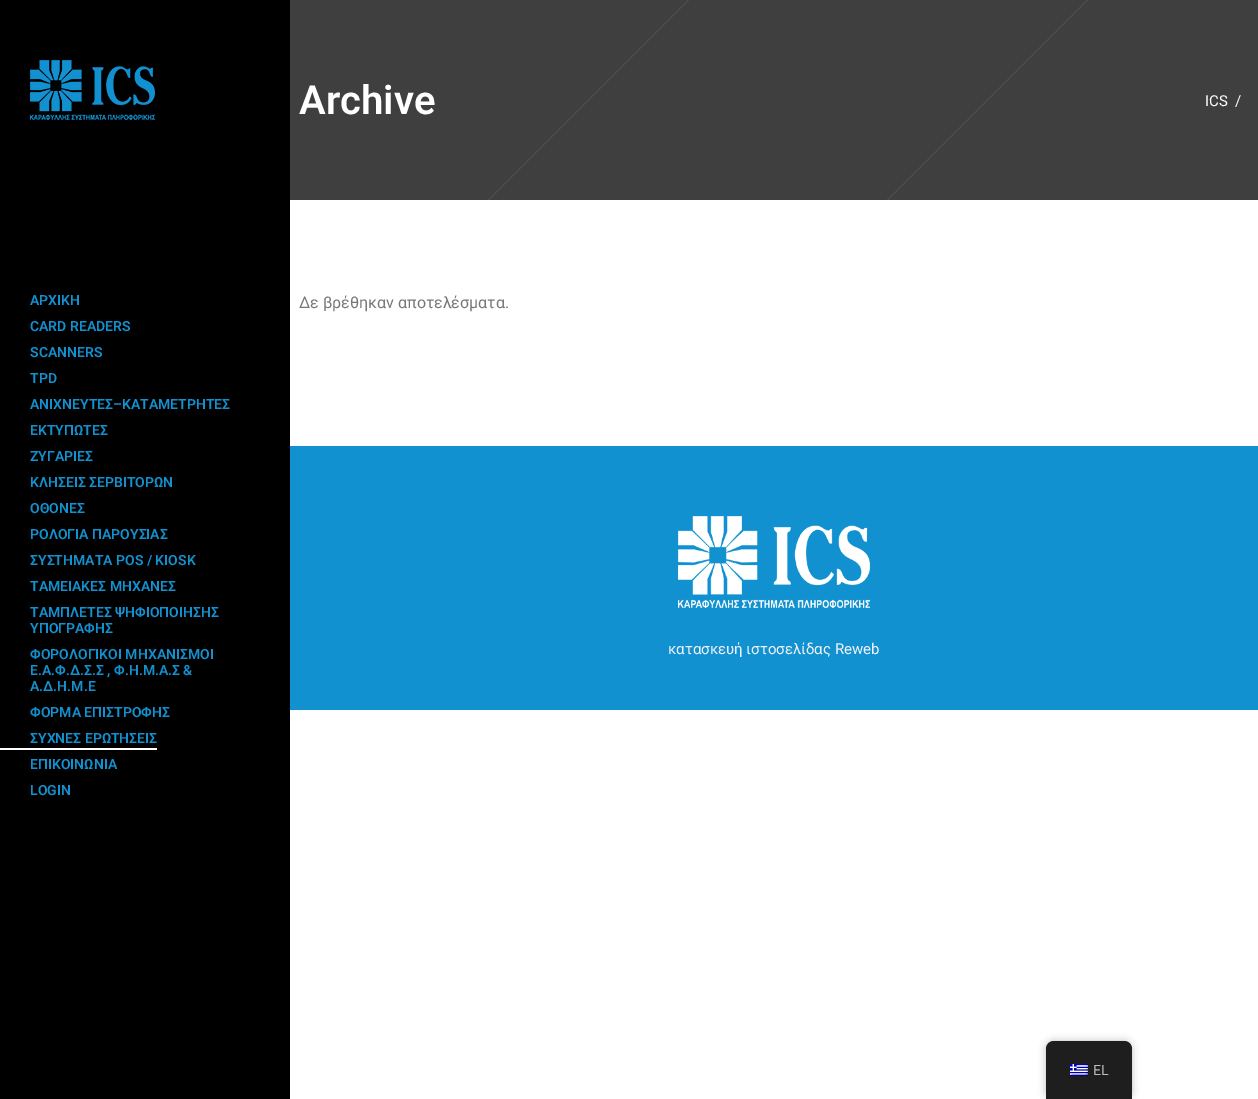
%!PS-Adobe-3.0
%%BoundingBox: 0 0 1258 1099
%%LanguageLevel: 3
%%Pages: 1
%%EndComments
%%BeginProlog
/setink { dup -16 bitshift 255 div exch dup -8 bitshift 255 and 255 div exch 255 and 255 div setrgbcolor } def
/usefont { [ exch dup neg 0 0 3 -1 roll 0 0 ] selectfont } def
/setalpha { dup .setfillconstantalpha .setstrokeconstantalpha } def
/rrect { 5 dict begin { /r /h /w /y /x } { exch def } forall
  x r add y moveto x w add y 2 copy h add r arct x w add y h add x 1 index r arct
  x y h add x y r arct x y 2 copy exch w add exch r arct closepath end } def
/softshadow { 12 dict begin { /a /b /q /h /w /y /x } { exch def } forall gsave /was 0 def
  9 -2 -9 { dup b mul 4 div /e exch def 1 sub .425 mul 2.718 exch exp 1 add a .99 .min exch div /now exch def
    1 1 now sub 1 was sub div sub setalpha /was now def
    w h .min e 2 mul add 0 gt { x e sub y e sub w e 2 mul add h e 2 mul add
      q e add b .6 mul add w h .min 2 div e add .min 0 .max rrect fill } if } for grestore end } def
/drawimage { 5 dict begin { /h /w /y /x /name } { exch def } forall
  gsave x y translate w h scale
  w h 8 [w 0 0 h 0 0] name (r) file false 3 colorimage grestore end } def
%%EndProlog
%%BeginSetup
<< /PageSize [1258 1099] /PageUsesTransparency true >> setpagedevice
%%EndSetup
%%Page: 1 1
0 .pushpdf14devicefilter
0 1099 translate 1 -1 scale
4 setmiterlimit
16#FFFFFF setink
0 0 1258 1099 rectfill
(img1.raw) 290 0 968 200 drawimage
/Roboto-SemiBold 40 usefont
299 114 moveto (Archive) show
/Roboto-Regular 15 usefont
1205 106 moveto (ICS) show
1235 106 moveto (/) show
/Roboto-Regular 16 usefont
16#777777 setink
299 308 moveto (Δε βρέθηκαν αποτελέσματα.) show
16#000000 setink
0 0 290 1099 rectfill
(img2.raw) 30 60 125 60 drawimage
/Roboto-SemiBold 14 usefont
16#1191D0 setink
[
    [(ΑΡΧΙΚΗ) 30 305]
    [(CARD READERS) 30 331]
    [(SCANNERS) 30 357]
    [(TPD) 30 383]
    [(ΑΝΙΧΝΕΥΤΕΣ–ΚΑΤΑΜΕΤΡΗΤΕΣ) 30 409]
    [(ΕΚΤΥΠΩΤΕΣ) 30 435]
    [(ΖΥΓΑΡΙΕΣ) 30 461]
    [(ΚΛΗΣΕΙΣ ΣΕΡΒΙΤΟΡΩΝ) 30 487]
    [(ΟΘΟΝΕΣ) 30 513]
    [(ΡΟΛΟΓΙΑ ΠΑΡΟΥΣΙΑΣ) 30 539]
    [(ΣΥΣΤΗΜΑΤΑ POS / KIOSK) 30 565]
    [(ΤΑΜΕΙΑΚΕΣ ΜΗΧΑΝΕΣ) 30 591]
    [(ΤΑΜΠΛΕΤΕΣ ΨΗΦΙΟΠΟΙΗΣΗΣ) 30 617]
    [(ΥΠΟΓΡΑΦΗΣ) 30 633]
    [(ΦΟΡΟΛΟΓΙΚΟΙ ΜΗΧΑΝΙΣΜΟΙ) 30 659]
    [(Ε.Α.Φ.Δ.Σ.Σ , Φ.Η.Μ.Α.Σ &) 30 675]
    [(Α.Δ.Η.Μ.Ε) 30 691]
    [(ΦΟΡΜΑ ΕΠΙΣΤΡΟΦΗΣ) 30 717]
    [(ΣΥΧΝΕΣ ΕΡΩΤΗΣΕΙΣ) 30 743]
] { aload pop moveto show } forall
16#FFFFFF setink
0 748 157 2 rectfill
16#1191D0 setink
30 769 moveto (ΕΠΙΚΟΙΝΩΝΙΑ) show
30 795 moveto (LOGIN) show
290 446 968 264 rectfill
(img3.raw) 678 516 192 92 drawimage
/Roboto-Regular 15 usefont
16#F2F2F8 setink
668 654 moveto (κατασκευή ιστοσελίδας Reweb) show
16#000000 setink
1046 1041 86 58 8 4 0.25 softshadow
16#1E1E1E setink
1054 1041 moveto 1124 1041 lineto 1128.5 1041 1132 1044.5 1132 1049 curveto 1132 1099 lineto 1046 1099 lineto 1046 1049 lineto 1046 1044.5 1049.5 1041 1054 1041 curveto closepath fill
(img4.raw) 1070 1064 18 12 drawimage
/Roboto-Regular 14 usefont
16#BDBDBD setink
1093 1075 moveto (EL) show
.poppdf14devicefilter showpage
%%EOF
